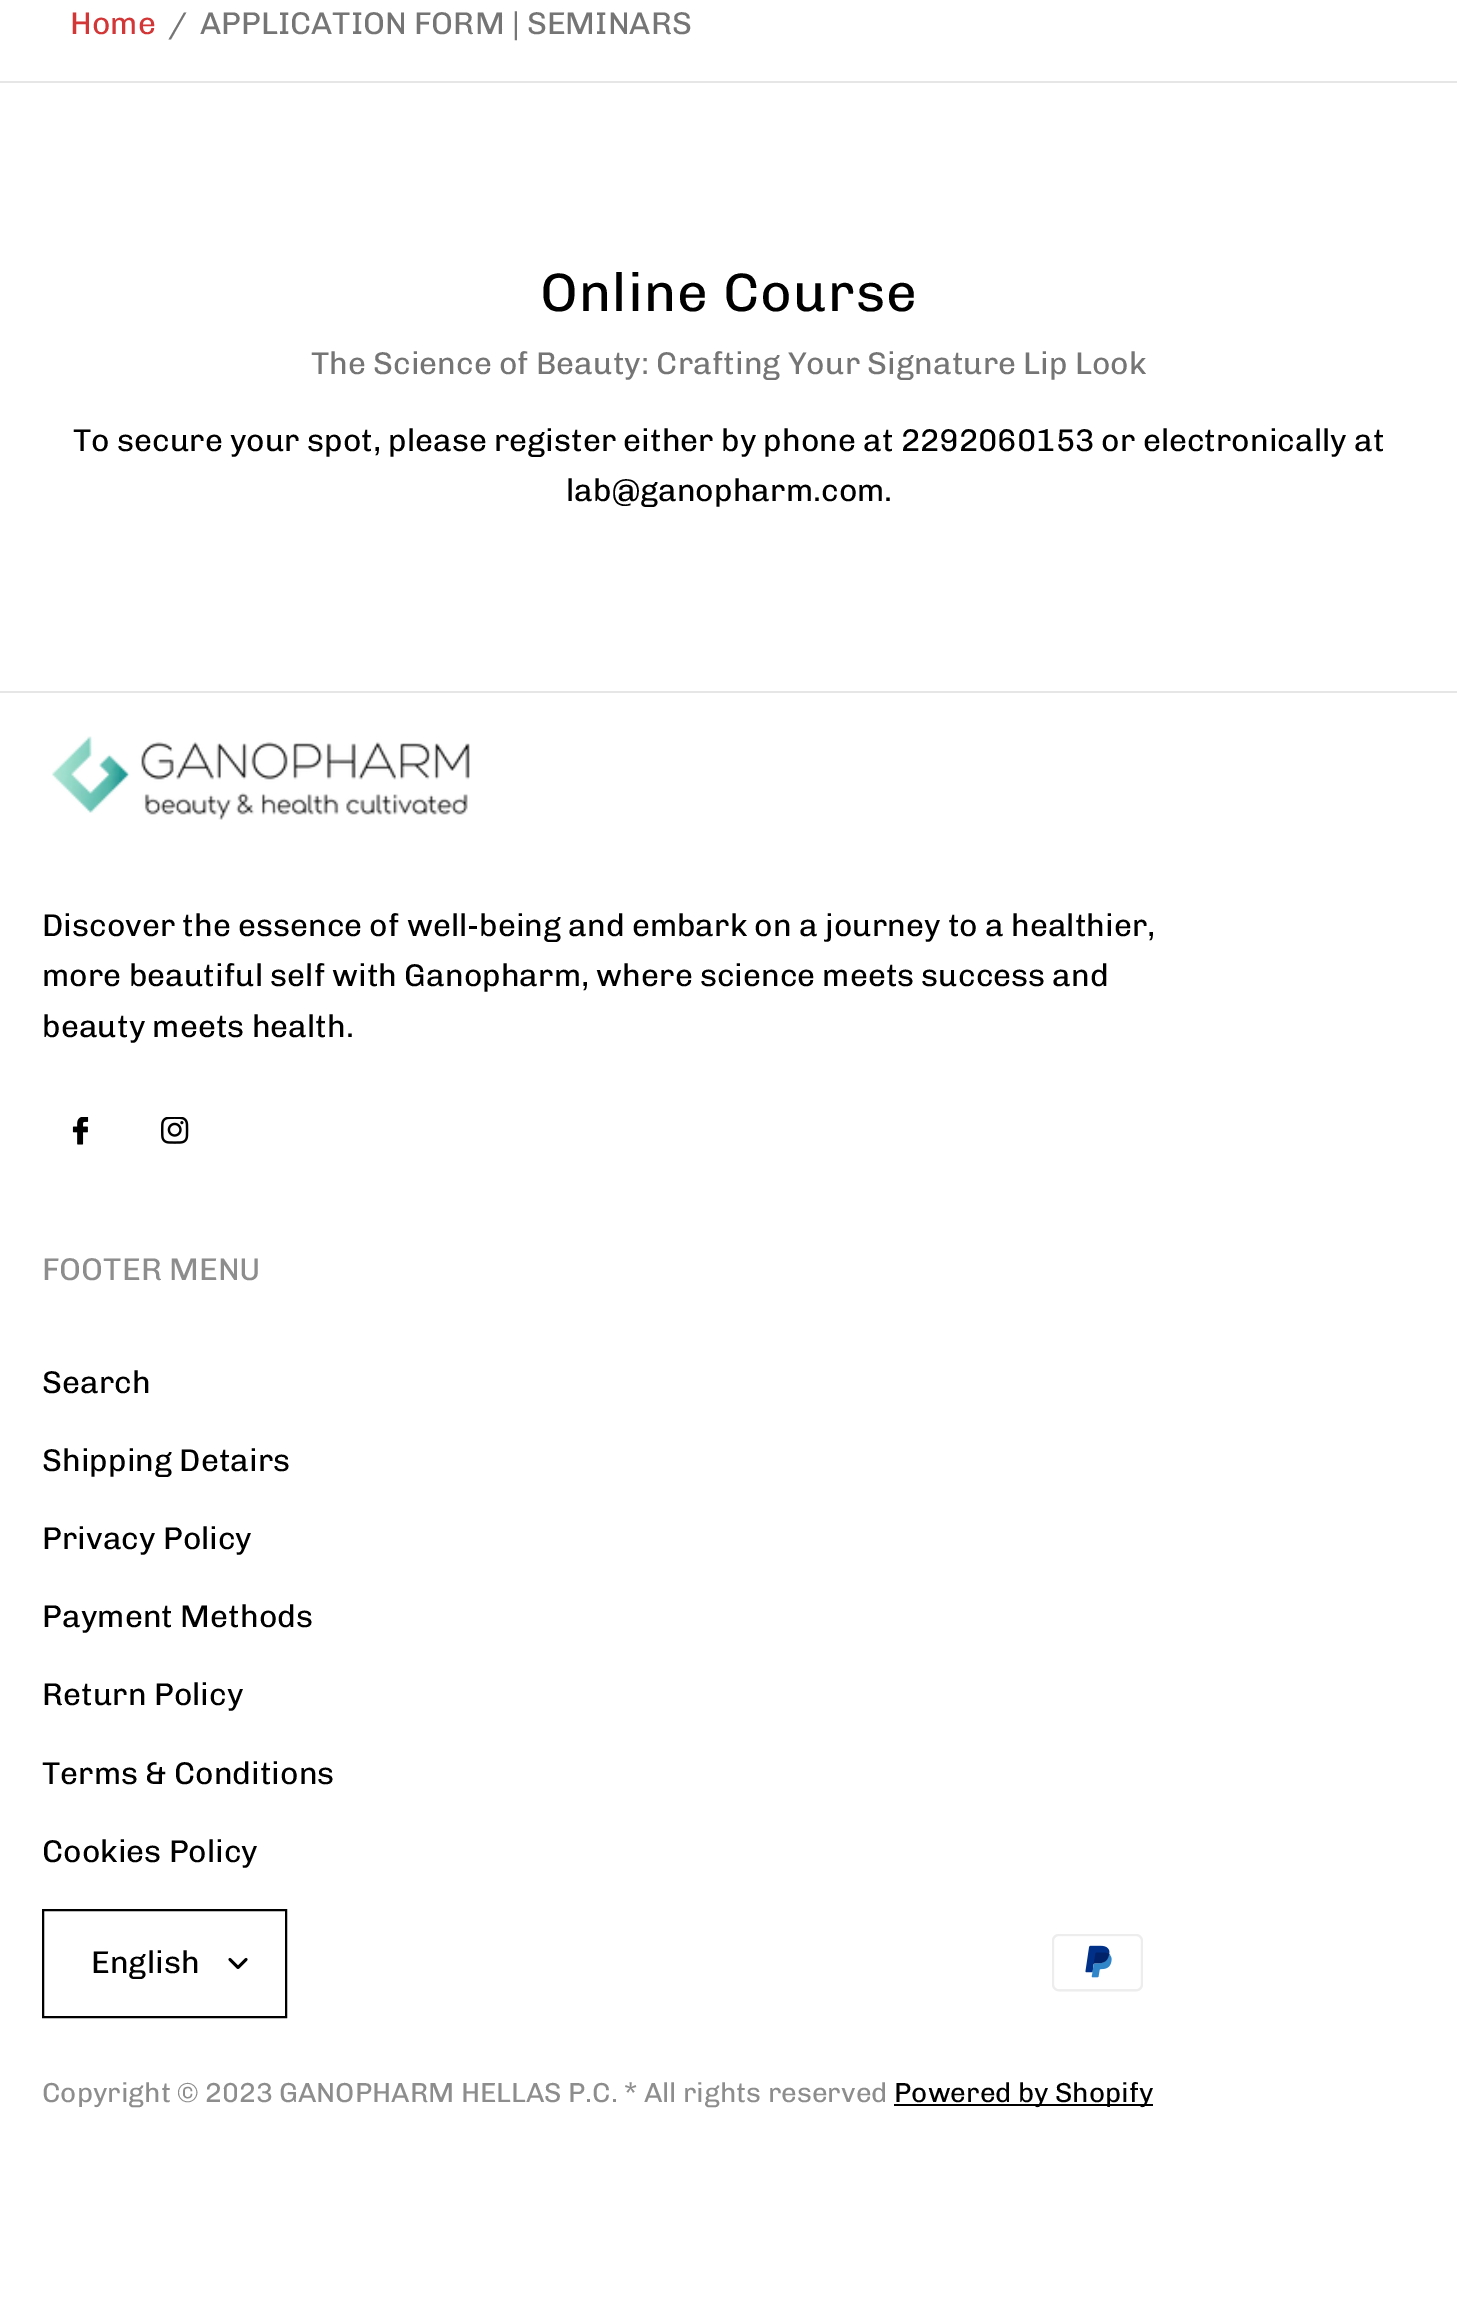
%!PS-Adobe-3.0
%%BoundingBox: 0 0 1457 2299
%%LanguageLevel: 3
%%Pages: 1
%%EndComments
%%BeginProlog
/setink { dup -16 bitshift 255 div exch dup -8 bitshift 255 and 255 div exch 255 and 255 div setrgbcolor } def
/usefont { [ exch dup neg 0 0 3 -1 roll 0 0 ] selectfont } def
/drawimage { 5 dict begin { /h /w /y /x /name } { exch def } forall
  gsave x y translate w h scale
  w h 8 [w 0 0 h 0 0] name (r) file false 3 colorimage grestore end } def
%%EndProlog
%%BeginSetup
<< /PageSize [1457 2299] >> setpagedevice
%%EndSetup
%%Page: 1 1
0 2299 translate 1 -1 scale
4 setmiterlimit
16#FFFFFF setink
0 0 1457 2299 rectfill
16#E6E6E6 setink
0 81 1457 2 rectfill
/Chivo-Regular 31.5 usefont
16#D33636 setink
70 34 moveto (Home) show
16#757575 setink
168 34 moveto (/) show
200 34 moveto (APPLICATION FORM | SEMINARS) show
/Chivo-Regular 54.25 usefont
16#000000 setink
540 311 moveto 1.1 0 (Online Course) ashow
/Chivo-Regular 31.5 usefont
16#757575 setink
311 374 moveto (The Science of Beauty: Crafting Your Signature Lip Look) show
16#000000 setink
73 451 moveto (To secure your spot, please register either by phone at 2292060153 or electronically at) show
566 501 moveto (lab@ganopharm.com.) show
16#E6E6E6 setink
0 691 1457 2 rectfill
(img1.raw) 52 736 418 84 drawimage
16#000000 setink
[
    [(Discover the essence of well-being and embark on a journey to a healthier,) 42 936]
    [(more beautiful self with Ganopharm, where science meets success and) 42 986]
    [(beauty meets health.) 42 1037]
] { aload pop moveto show } forall
(img2.raw) 72 1117 17 28 drawimage
(img3.raw) 161 1117 28 27 drawimage
16#8D8D8D setink
42 1280 moveto (FOOTER MENU) show
16#000000 setink
[
    [(Search) 42 1393]
    [(Shipping Detairs) 42 1471]
    [(Privacy Policy) 42 1549]
    [(Payment Methods) 42 1627]
    [(Return Policy) 42 1705]
    [(Terms & Conditions) 42 1784]
    [(Cookies Policy) 42 1862]
] { aload pop moveto show } forall
2 setlinewidth
43 1910 243 107 rectstroke
91 1973 moveto (English) show
(img4.raw) 228 1957 20 12 drawimage
(img5.raw) 1052 1934 91 58 drawimage
/Chivo-Regular 27.55 usefont
16#8D8D8D setink
42 2102 moveto (Copyright © 2023 GANOPHARM HELLAS P.C. * All rights reserved) show
16#000000 setink
894 2104 259 2 rectfill
894 2102 moveto (Powered by Shopify) show
showpage
%%EOF
